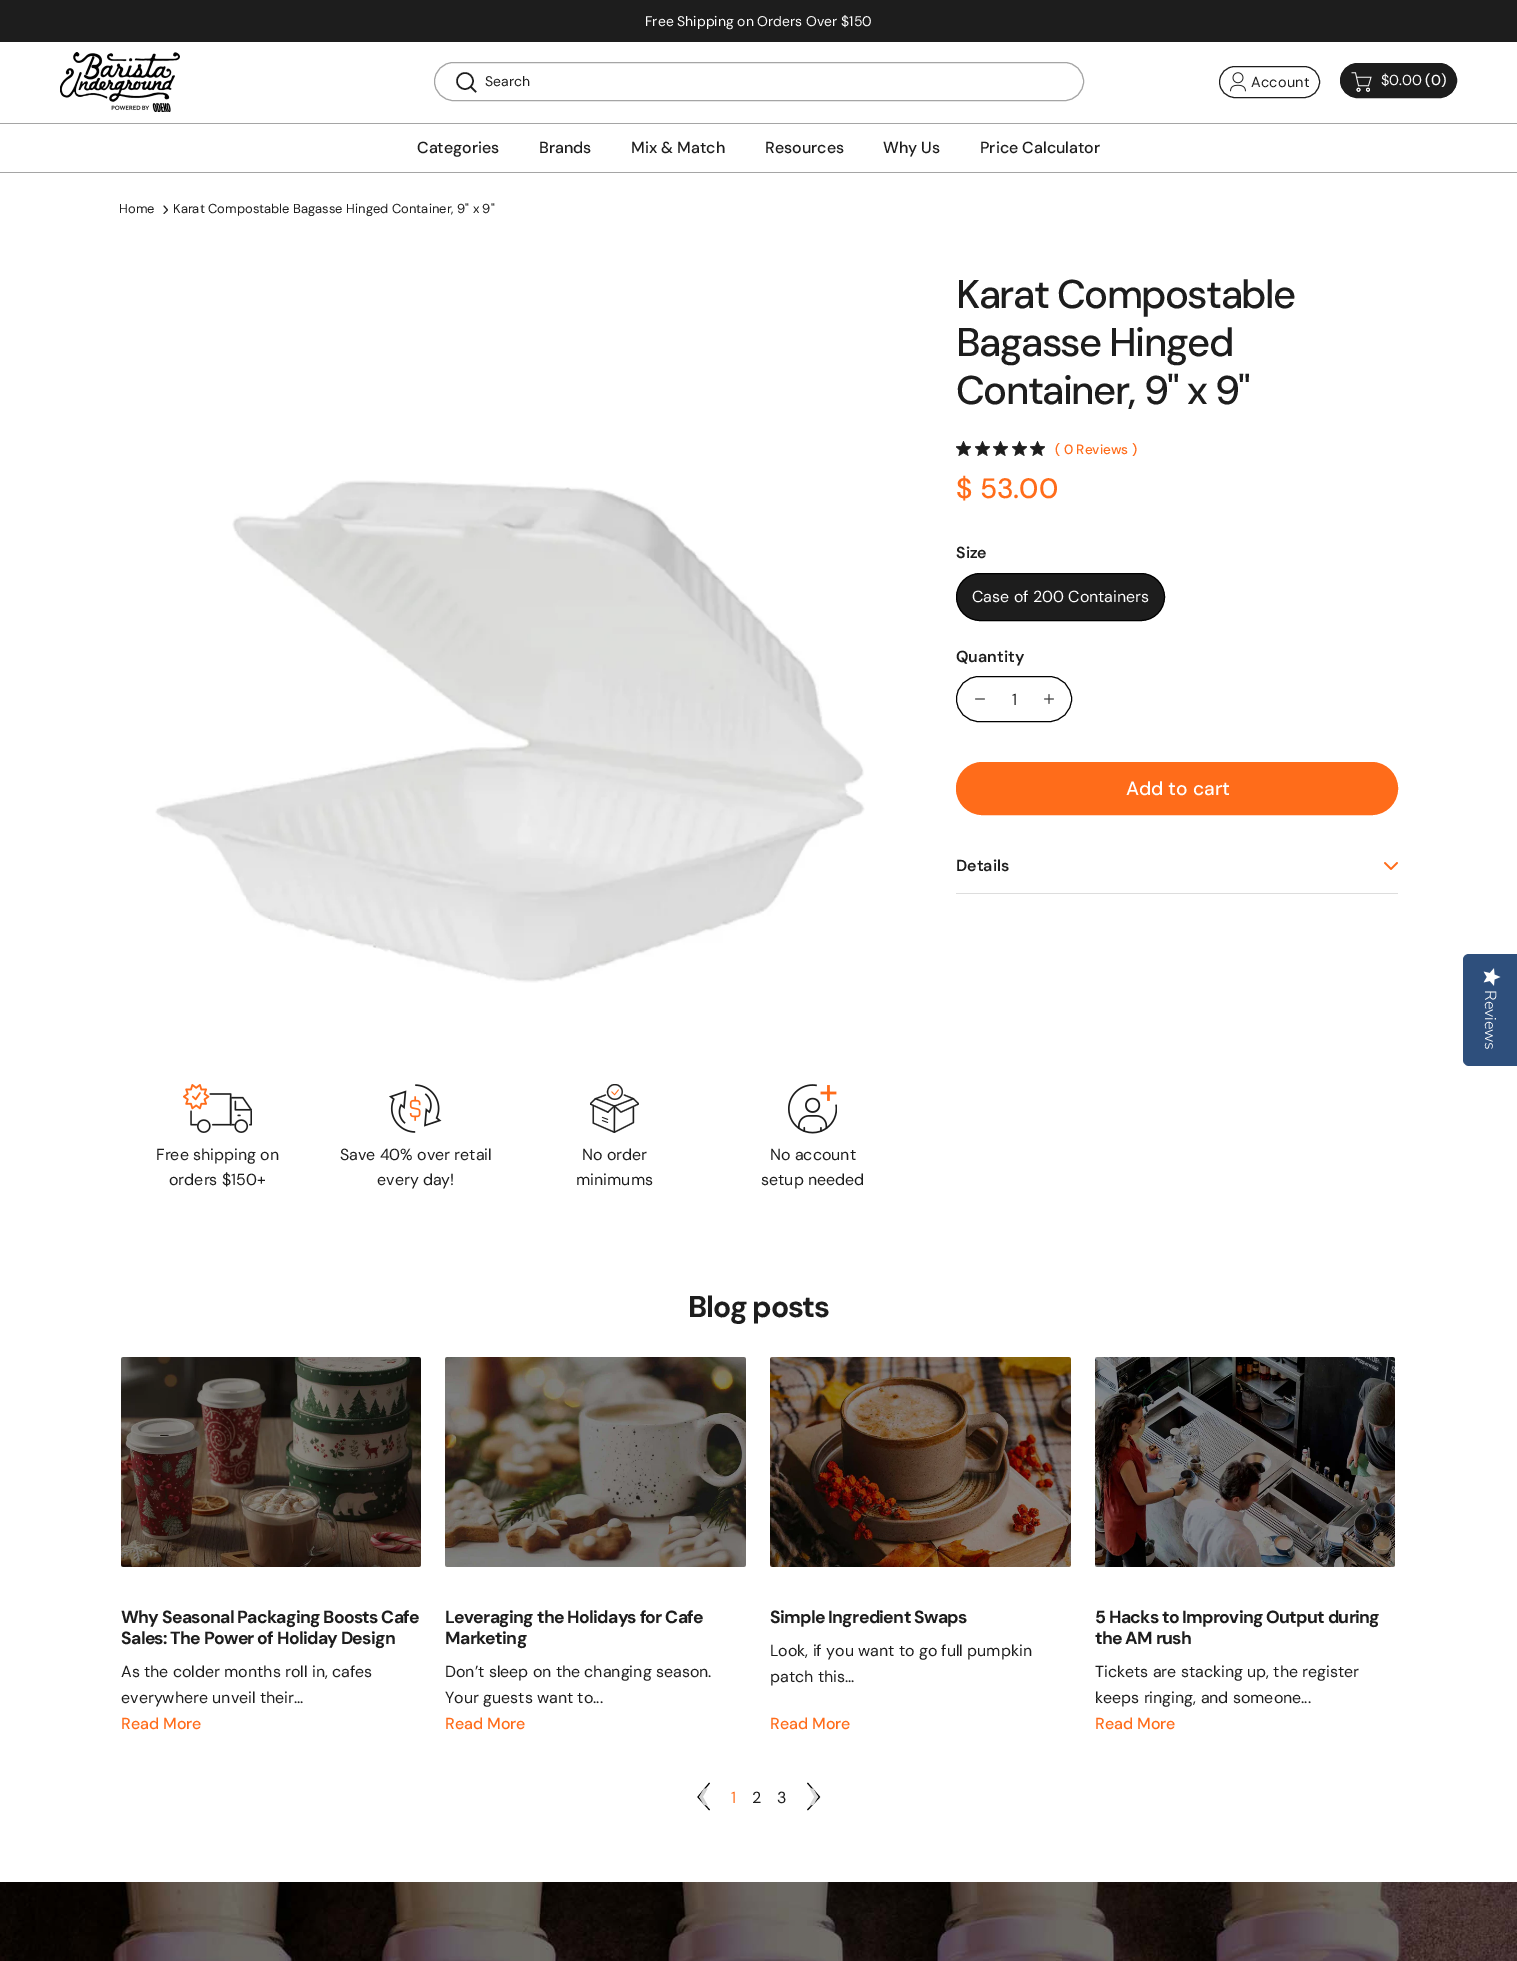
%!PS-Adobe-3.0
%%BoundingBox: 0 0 1517 1961
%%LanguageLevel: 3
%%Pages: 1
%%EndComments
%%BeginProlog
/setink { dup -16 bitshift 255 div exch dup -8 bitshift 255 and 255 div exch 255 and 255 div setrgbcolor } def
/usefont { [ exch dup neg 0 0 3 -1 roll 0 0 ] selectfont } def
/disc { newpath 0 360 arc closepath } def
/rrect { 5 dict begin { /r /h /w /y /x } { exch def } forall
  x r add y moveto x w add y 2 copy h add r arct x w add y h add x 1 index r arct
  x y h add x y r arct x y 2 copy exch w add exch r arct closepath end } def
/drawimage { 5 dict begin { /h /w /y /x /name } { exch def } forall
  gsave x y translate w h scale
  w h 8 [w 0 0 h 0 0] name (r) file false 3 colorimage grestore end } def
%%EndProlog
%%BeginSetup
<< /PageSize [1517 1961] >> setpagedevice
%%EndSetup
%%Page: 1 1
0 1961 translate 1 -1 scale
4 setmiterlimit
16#FFFFFF setink
0 0 1517 1961 rectfill
16#1D1D1D setink
0 0 1517 42 rectfill
/DMSans-Regular 14 usefont
16#FFFFFF setink
645 26 moveto (Free Shipping on Orders Over $150) show
16#A5A5A5 setink
0 123 1517 1 rectfill
(img1.raw) 60 52 120 60 drawimage
434.5 62.5 649 38 19 rrect stroke
16#1D1D1D setink
1.5 setlinewidth
465 81 8 disc stroke
2 setlinecap
471 87 moveto 475.5 91.5 lineto stroke
485 86 moveto (Search) show
1 setlinewidth
0 setlinecap
1219.5 66.5 100 31 15.5 rrect stroke
(img2.raw) 1230 72 16 20 drawimage
/DMSans-Regular 14.5 usefont
1251 87 moveto 0.25 0 (Account) ashow
1340.5 63.5 116 34 17 rrect gsave fill grestore
stroke
(img3.raw) 1351 72 21 20 drawimage
16#FFFFFF setink
1381 85 moveto ($0.00) show
/DMSans-Medium 14.5 usefont
1425 85 moveto (\(0\)) show
16#A5A5A5 setink
0 172 1517 1 rectfill
/DMSans-Medium 16 usefont
16#1D1D1D setink
[
    [(Categories) 417 153]
    [(Brands) 539 153]
    [(Mix & Match) 631 153]
    [(Resources) 765 153]
    [(Why Us) 883 153]
    [(Price Calculator) 980 153]
] { aload pop moveto show } forall
/DMSans-Regular 13 usefont
119 213 moveto (Home) show
1 setlinecap
1 setlinejoin
164 213.5 moveto 167.5 210 lineto 164 206 lineto stroke
173 213 moveto (Karat Compostable Bagasse Hinged Container, 9" x 9") show
/DMSans-Medium 40 usefont
956 308 moveto -1.6 0 (Karat Compostable) ashow
956 356 moveto -1.6 0 (Bagasse Hinged) ashow
956 404 moveto -1.6 0 (Container, 9" x 9") ashow
(img4.raw) 956 441 15 15 drawimage
(img4.raw) 975 441 15 15 drawimage
(img4.raw) 993 441 15 15 drawimage
(img4.raw) 1012 441 15 15 drawimage
(img4.raw) 1030 441 15 15 drawimage
/DMSans-Medium 13.5 usefont
16#FF6C1A setink
1055 454 moveto (\( 0 Reviews \)) show
/DMSans-Medium 28 usefont
956 498 moveto ($ 53.00) show
/DMSans-SemiBold 16 usefont
16#1D1D1D setink
956 558 moveto (Size) show
956.5 573.5 208 47 23.5 rrect gsave fill grestore
16#000000 setink
0 setlinecap
0 setlinejoin
stroke
/DMSans-Regular 16 usefont
16#FFFFFF setink
972 602 moveto (Case of 200 Containers) show
/DMSans-SemiBold 16 usefont
16#1D1D1D setink
956 662 moveto (Quantity) show
16#000000 setink
956.5 676.5 115 45 22.5 rrect stroke
16#1D1D1D setink
0.7 setlinewidth
1 setlinecap
1 setlinejoin
975.5 699 moveto 984.5 699 lineto stroke
/DMSans-Regular 16 usefont
1012 705 moveto (1) show
1049 694.5 moveto 1049 703.5 lineto 1044.5 699 moveto 1053.5 699 lineto stroke
16#FF6C1A setink
956.5 762.5 441 52 26 rrect gsave fill grestore
1 setlinewidth
0 setlinecap
0 setlinejoin
stroke
/DMSans-Medium 19.25 usefont
16#FFFFFF setink
1126 795 moveto (Add to cart) show
16#DDDDDD setink
956 893 442 1 rectfill
/DMSans-SemiBold 16 usefont
16#1D1D1D setink
956 871 moveto (Details) show
(img5.raw) 1384 862 14 8 drawimage
(img6.raw) 155 480 710 503 drawimage
(img7.raw) 183 1084 69 49 drawimage
/DMSans-Regular 16 usefont
156 1160 moveto (Free shipping on) show
169 1185 moveto (orders $150+) show
(img8.raw) 389 1084 53 49 drawimage
340 1160 moveto (Save 40% over retail) show
377 1185 moveto (every day!) show
(img9.raw) 590 1084 49 49 drawimage
582 1160 moveto (No order) show
576 1185 moveto (minimums) show
(img10.raw) 788 1084 49 50 drawimage
770 1160 moveto (No account) show
761 1185 moveto (setup needed) show
/DMSans-Bold 30 usefont
688 1317 moveto -1.25 0 (Blog posts) ashow
(img11.raw) 121 1357 300 210 drawimage
/DMSans-Bold 17.6 usefont
121 1623 moveto -0.7 0 (Why Seasonal Packaging Boosts Cafe) ashow
121 1644 moveto -0.7 0 (Sales: The Power of Holiday Design) ashow
/DMSans-Regular 16 usefont
121 1677 moveto (As the colder months roll in, cafes) show
121 1703 moveto (everywhere unveil their...) show
/DMSans-Medium 16 usefont
16#FF6C1A setink
121 1729 moveto (Read More) show
(img12.raw) 445 1357 301 210 drawimage
/DMSans-Bold 17.6 usefont
16#1D1D1D setink
445 1623 moveto -0.7 0 (Leveraging the Holidays for Cafe) ashow
445 1644 moveto -0.7 0 (Marketing) ashow
/DMSans-Regular 16 usefont
445 1677 moveto (Don’t sleep on the changing season.) show
445 1703 moveto (Your guests want to...) show
/DMSans-Medium 16 usefont
16#FF6C1A setink
445 1729 moveto (Read More) show
(img13.raw) 770 1357 301 210 drawimage
/DMSans-Bold 17.6 usefont
16#1D1D1D setink
770 1623 moveto -0.7 0 (Simple Ingredient Swaps) ashow
/DMSans-Regular 16 usefont
770 1656 moveto (Look, if you want to go full pumpkin) show
770 1682 moveto (patch this...) show
/DMSans-Medium 16 usefont
16#FF6C1A setink
770 1729 moveto (Read More) show
(img14.raw) 1095 1357 300 210 drawimage
/DMSans-Bold 17.6 usefont
16#1D1D1D setink
1095 1623 moveto -0.7 0 (5 Hacks to Improving Output during) ashow
1095 1644 moveto -0.7 0 (the AM rush) ashow
/DMSans-Regular 16 usefont
1095 1677 moveto (Tickets are stacking up, the register) show
1095 1703 moveto (keeps ringing, and someone...) show
/DMSans-Medium 16 usefont
16#FF6C1A setink
1095 1729 moveto (Read More) show
16#000000 setink
709.5 1783 moveto 698 1797 lineto 709.5 1810 lineto stroke
/DMSans-Regular 48 usefont
16#D2D2D2 setink
697 1811 moveto (‹) show
16#000000 setink
807.5 1783 moveto 819.5 1797 lineto 807.5 1810 lineto stroke
16#D9D9D9 setink
807 1811 moveto (›) show
/DMSans-Regular 16 usefont
16#FF6C1A setink
731 1803 moveto (1) show
16#1D1D1D setink
752 1803 moveto (2) show
777 1803 moveto (3) show
(img15.raw) 0 1882 1517 79 drawimage
16#2E4F7C setink
1517 954 moveto 1517 1066 lineto 1469 1066 lineto 1466 1066 1463 1063 1463 1060 curveto 1463 960 lineto 1463 956 1466 954 1469 954 curveto closepath fill
(img16.raw) 1483 968 18 18 drawimage
/NunitoSans-Light 16 usefont
16#FFFFFF setink
gsave 1485 990 translate 90 rotate 0 0 moveto (Reviews) show grestore
showpage
%%EOF
